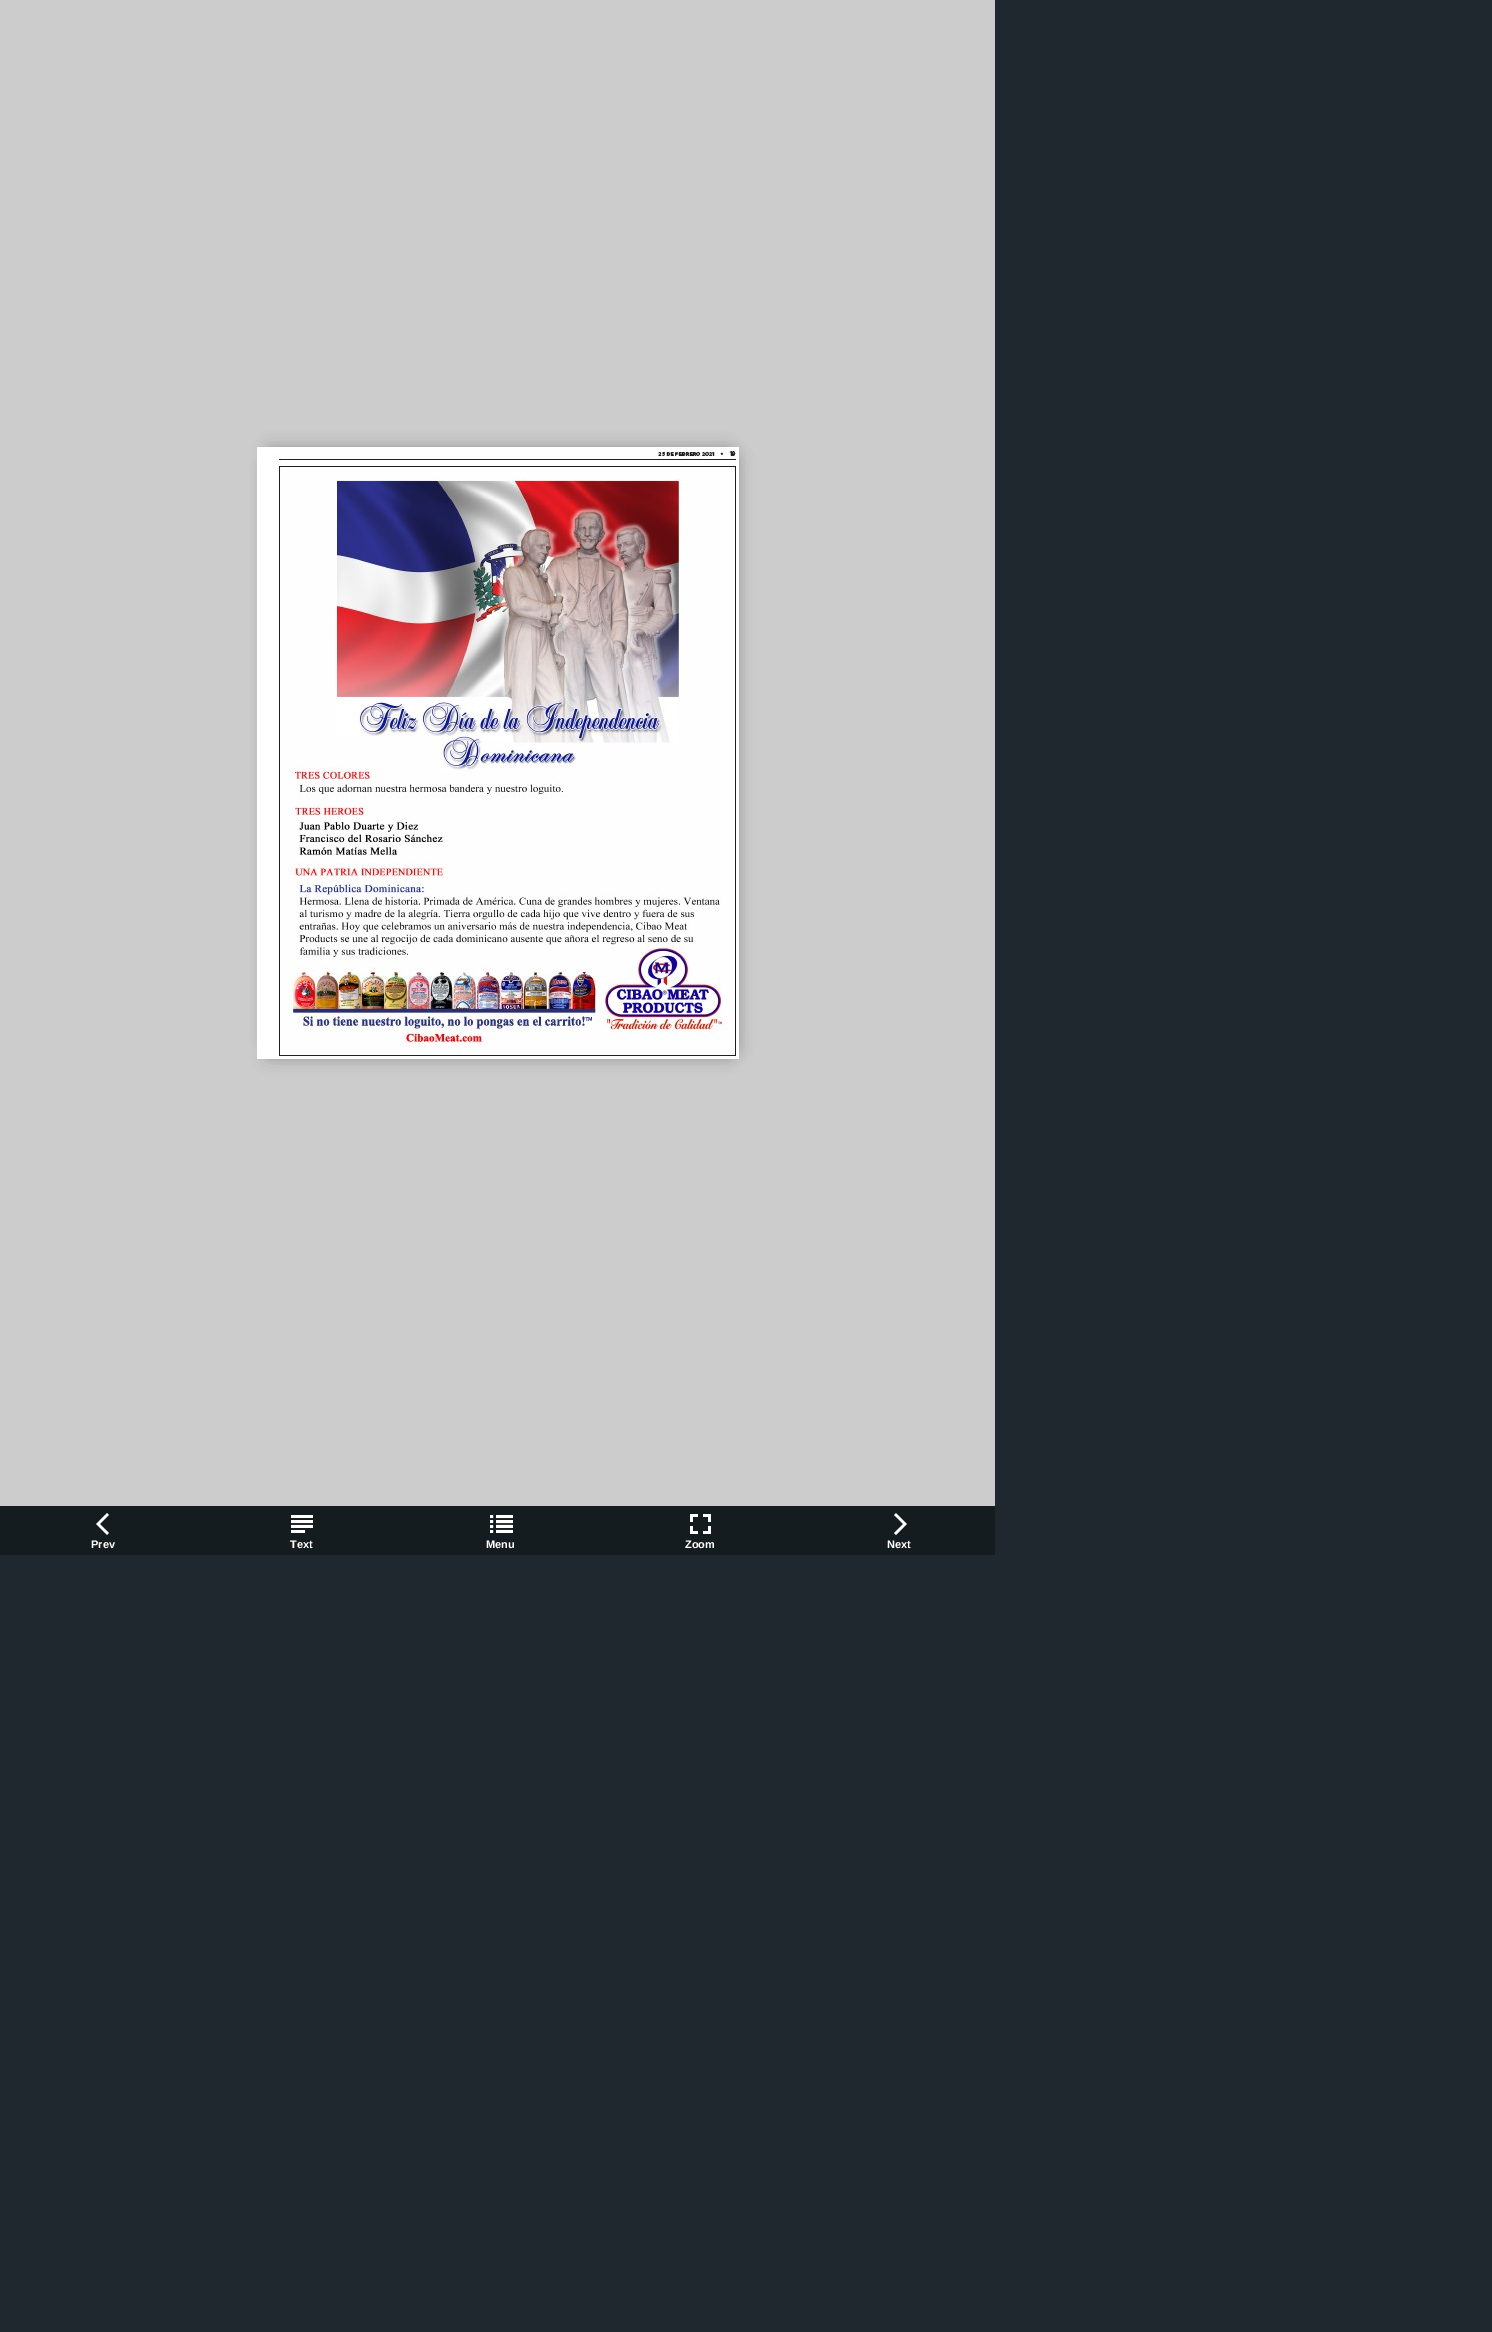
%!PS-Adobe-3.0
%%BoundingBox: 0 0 1492 2332
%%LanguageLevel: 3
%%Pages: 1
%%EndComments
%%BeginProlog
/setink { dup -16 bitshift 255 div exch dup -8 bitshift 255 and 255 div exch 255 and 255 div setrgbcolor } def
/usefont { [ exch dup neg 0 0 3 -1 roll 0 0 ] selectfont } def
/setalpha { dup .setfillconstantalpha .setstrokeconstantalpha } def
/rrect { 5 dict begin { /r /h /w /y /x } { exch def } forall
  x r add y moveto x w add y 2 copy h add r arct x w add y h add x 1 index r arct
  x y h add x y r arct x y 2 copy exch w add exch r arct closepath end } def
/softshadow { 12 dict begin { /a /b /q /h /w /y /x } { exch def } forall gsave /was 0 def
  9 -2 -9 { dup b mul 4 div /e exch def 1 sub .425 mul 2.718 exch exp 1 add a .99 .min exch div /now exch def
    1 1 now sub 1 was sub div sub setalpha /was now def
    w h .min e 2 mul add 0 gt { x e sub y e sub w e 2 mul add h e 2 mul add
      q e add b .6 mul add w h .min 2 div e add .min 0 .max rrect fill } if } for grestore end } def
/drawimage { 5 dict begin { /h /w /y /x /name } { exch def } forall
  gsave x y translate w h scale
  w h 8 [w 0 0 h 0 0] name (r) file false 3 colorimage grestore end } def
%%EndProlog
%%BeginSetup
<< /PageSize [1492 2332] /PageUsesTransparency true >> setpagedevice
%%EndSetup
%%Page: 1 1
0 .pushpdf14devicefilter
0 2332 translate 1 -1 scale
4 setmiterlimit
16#1E282E setink
0 0 1492 2332 rectfill
16#CCCCCC setink
0 0 995 1506 rectfill
16#000000 setink
277 457 462 592 0 7.5 0.2 softshadow
267 447 462 592 0 7.5 0.2 softshadow
267 467 462 592 0 7.5 0.2 softshadow
(img1.raw) 257 447 482 612 drawimage
16#151C20 setink
0 1506 995 49 rectfill
(img2.raw) 96 1513 13 22 drawimage
/LiberationSans-Bold 11 usefont
16#FFFFFF setink
91 1548 moveto (Prev) show
(img3.raw) 291 1515 22 18 drawimage
290 1548 moveto (Text) show
(img4.raw) 490 1515 23 18 drawimage
486 1548 moveto (Menu) show
(img5.raw) 690 1514 21 20 drawimage
685 1548 moveto (Zoom) show
(img6.raw) 894 1513 13 22 drawimage
887 1548 moveto (Next) show
.poppdf14devicefilter showpage
%%EOF
